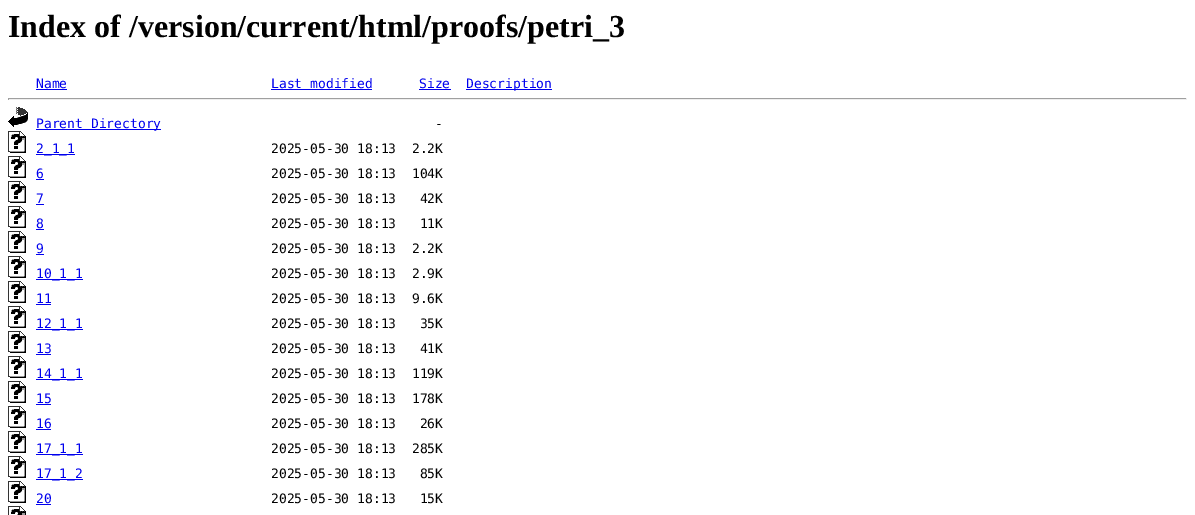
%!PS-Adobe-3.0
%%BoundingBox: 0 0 1195 515
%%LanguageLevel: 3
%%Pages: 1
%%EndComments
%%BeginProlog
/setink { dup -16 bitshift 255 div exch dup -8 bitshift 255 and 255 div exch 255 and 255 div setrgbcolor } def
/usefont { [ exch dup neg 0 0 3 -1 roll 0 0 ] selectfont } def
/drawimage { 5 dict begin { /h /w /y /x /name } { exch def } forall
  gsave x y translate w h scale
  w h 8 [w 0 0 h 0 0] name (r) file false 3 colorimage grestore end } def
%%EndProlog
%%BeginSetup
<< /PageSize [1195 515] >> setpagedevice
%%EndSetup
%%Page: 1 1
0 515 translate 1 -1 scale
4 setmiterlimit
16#FFFFFF setink
0 0 1195 515 rectfill
/LiberationSerif-Bold 32 usefont
16#000000 setink
8 37 moveto (Index of /version/current/html/proofs/petri_3) show
/DejaVuSansMono-Regular 13 usefont
16#0000EE setink
36 88 moveto (Name) show
36 89 31 1 rectfill
271 88 moveto (Last modified) show
271 89 101 1 rectfill
419 88 moveto (Size) show
419 89 32 1 rectfill
466 89 86 1 rectfill
466 88 moveto (Description) show
[
    [8 98 1179 1 16#9F9F9F]
    [1186 98 1 2 16#EEEEEE]
    [8 99 1179 1 16#EEEEEE]
    [8 98 1 2 16#9F9F9F]
] { aload pop setink rectfill } forall
(img1.raw) 8 107 20 20 drawimage
16#0000EE setink
36 129 125 1 rectfill
36 128 moveto (Parent Directory) show
16#000000 setink
435 128 moveto (-) show
(img2.raw) 8 131 18 22 drawimage
16#0000EE setink
36 154 39 1 rectfill
36 153 moveto (2_1_1) show
16#000000 setink
271 153 moveto (2025-05-30 18:13  2.2K) show
(img2.raw) 8 156 18 22 drawimage
16#0000EE setink
36 178 moveto (6) show
36 179 8 1 rectfill
16#000000 setink
271 178 moveto (2025-05-30 18:13  104K) show
(img2.raw) 8 181 18 22 drawimage
16#0000EE setink
36 203 moveto (7) show
36 204 8 1 rectfill
16#000000 setink
271 203 moveto (2025-05-30 18:13   42K) show
(img2.raw) 8 206 18 22 drawimage
16#0000EE setink
36 228 moveto (8) show
36 229 8 1 rectfill
16#000000 setink
271 228 moveto (2025-05-30 18:13   11K) show
(img2.raw) 8 231 18 22 drawimage
16#0000EE setink
36 253 moveto (9) show
36 254 8 1 rectfill
16#000000 setink
271 253 moveto (2025-05-30 18:13  2.2K) show
(img2.raw) 8 256 18 22 drawimage
16#0000EE setink
36 279 47 1 rectfill
36 278 moveto (10_1_1) show
16#000000 setink
271 278 moveto (2025-05-30 18:13  2.9K) show
(img2.raw) 8 281 18 22 drawimage
16#0000EE setink
36 303 moveto (11) show
36 304 15 1 rectfill
16#000000 setink
271 303 moveto (2025-05-30 18:13  9.6K) show
(img2.raw) 8 306 18 22 drawimage
16#0000EE setink
36 329 47 1 rectfill
36 328 moveto (12_1_1) show
16#000000 setink
271 328 moveto (2025-05-30 18:13   35K) show
(img2.raw) 8 331 18 22 drawimage
16#0000EE setink
36 353 moveto (13) show
36 354 15 1 rectfill
16#000000 setink
271 353 moveto (2025-05-30 18:13   41K) show
(img2.raw) 8 356 18 22 drawimage
16#0000EE setink
36 379 47 1 rectfill
36 378 moveto (14_1_1) show
16#000000 setink
271 378 moveto (2025-05-30 18:13  119K) show
(img2.raw) 8 381 18 22 drawimage
16#0000EE setink
36 403 moveto (15) show
36 404 15 1 rectfill
16#000000 setink
271 403 moveto (2025-05-30 18:13  178K) show
(img2.raw) 8 406 18 22 drawimage
16#0000EE setink
36 428 moveto (16) show
36 429 15 1 rectfill
16#000000 setink
271 428 moveto (2025-05-30 18:13   26K) show
(img2.raw) 8 431 18 22 drawimage
16#0000EE setink
36 454 47 1 rectfill
36 453 moveto (17_1_1) show
16#000000 setink
271 453 moveto (2025-05-30 18:13  285K) show
(img2.raw) 8 456 18 22 drawimage
16#0000EE setink
36 479 47 1 rectfill
36 478 moveto (17_1_2) show
16#000000 setink
271 478 moveto (2025-05-30 18:13   85K) show
(img2.raw) 8 481 18 22 drawimage
16#0000EE setink
36 503 moveto (20) show
36 504 15 1 rectfill
16#000000 setink
271 503 moveto (2025-05-30 18:13   15K) show
(img3.raw) 8 506 18 9 drawimage
showpage
%%EOF
